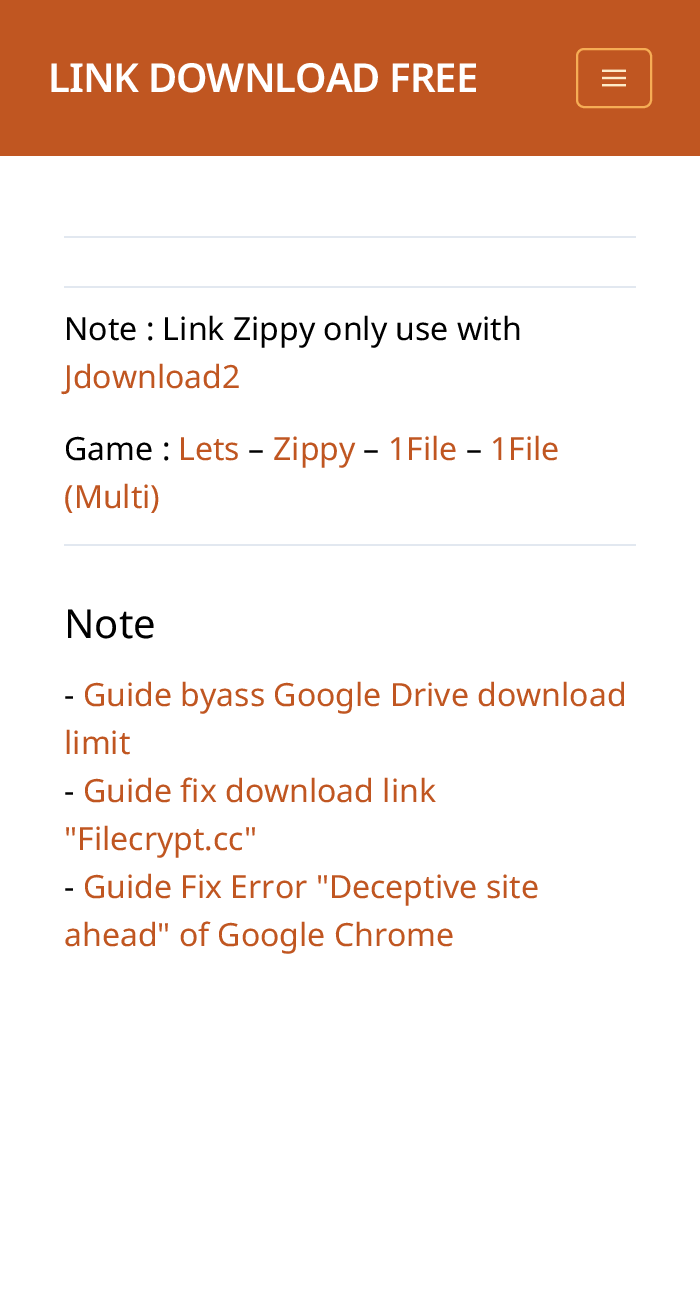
%!PS-Adobe-3.0
%%BoundingBox: 0 0 700 1299
%%LanguageLevel: 3
%%Pages: 1
%%EndComments
%%BeginProlog
/setink { dup -16 bitshift 255 div exch dup -8 bitshift 255 and 255 div exch 255 and 255 div setrgbcolor } def
/usefont { [ exch dup neg 0 0 3 -1 roll 0 0 ] selectfont } def
/rrect { 5 dict begin { /r /h /w /y /x } { exch def } forall
  x r add y moveto x w add y 2 copy h add r arct x w add y h add x 1 index r arct
  x y h add x y r arct x y 2 copy exch w add exch r arct closepath end } def
/drawimage { 5 dict begin { /h /w /y /x /name } { exch def } forall
  gsave x y translate w h scale
  w h 8 [w 0 0 h 0 0] name (r) file false 3 colorimage grestore end } def
%%EndProlog
%%BeginSetup
<< /PageSize [700 1299] >> setpagedevice
%%EndSetup
%%Page: 1 1
0 1299 translate 1 -1 scale
4 setmiterlimit
16#FFFFFF setink
0 0 700 1299 rectfill
16#C05621 setink
0 0 700 156 rectfill
/NotoSans-SemiBold 40 usefont
16#FFFFFF setink
48 92 moveto -1 0 (LINK DOWNLOAD FREE) ashow
16#F6AD55 setink
2 setlinewidth
577 49 74 58 7 rrect stroke
(img1.raw) 602 69 24 18 drawimage
16#E2E8F0 setink
64 236 572 2 rectfill
64 286 572 2 rectfill
/NotoSans-Regular 32 usefont
16#000000 setink
64 340 moveto (Note : Link Zippy only use with) show
16#C05621 setink
64 388 moveto (Jdownload2) show
16#000000 setink
64 460 moveto (Game :) show
16#C05621 setink
178 460 moveto (Lets) show
16#000000 setink
248 460 moveto (–) show
16#C05621 setink
273 460 moveto (Zippy) show
16#000000 setink
363 460 moveto (–) show
16#C05621 setink
388 460 moveto (1File) show
16#000000 setink
466 460 moveto (–) show
16#C05621 setink
490 460 moveto (1File) show
64 508 moveto (\(Multi\)) show
16#E2E8F0 setink
64 544 572 2 rectfill
/NotoSans-Regular 40 usefont
16#000000 setink
64 638 moveto (Note) show
/NotoSans-Regular 32 usefont
64 706 moveto (-) show
16#C05621 setink
83 706 moveto (Guide byass Google Drive download) show
64 754 moveto (limit) show
16#000000 setink
64 802 moveto (-) show
16#C05621 setink
83 802 moveto (Guide fix download link) show
64 850 moveto ("Filecrypt.cc") show
16#000000 setink
64 898 moveto (-) show
16#C05621 setink
83 898 moveto (Guide Fix Error "Deceptive site) show
64 946 moveto (ahead" of Google Chrome) show
showpage
%%EOF
